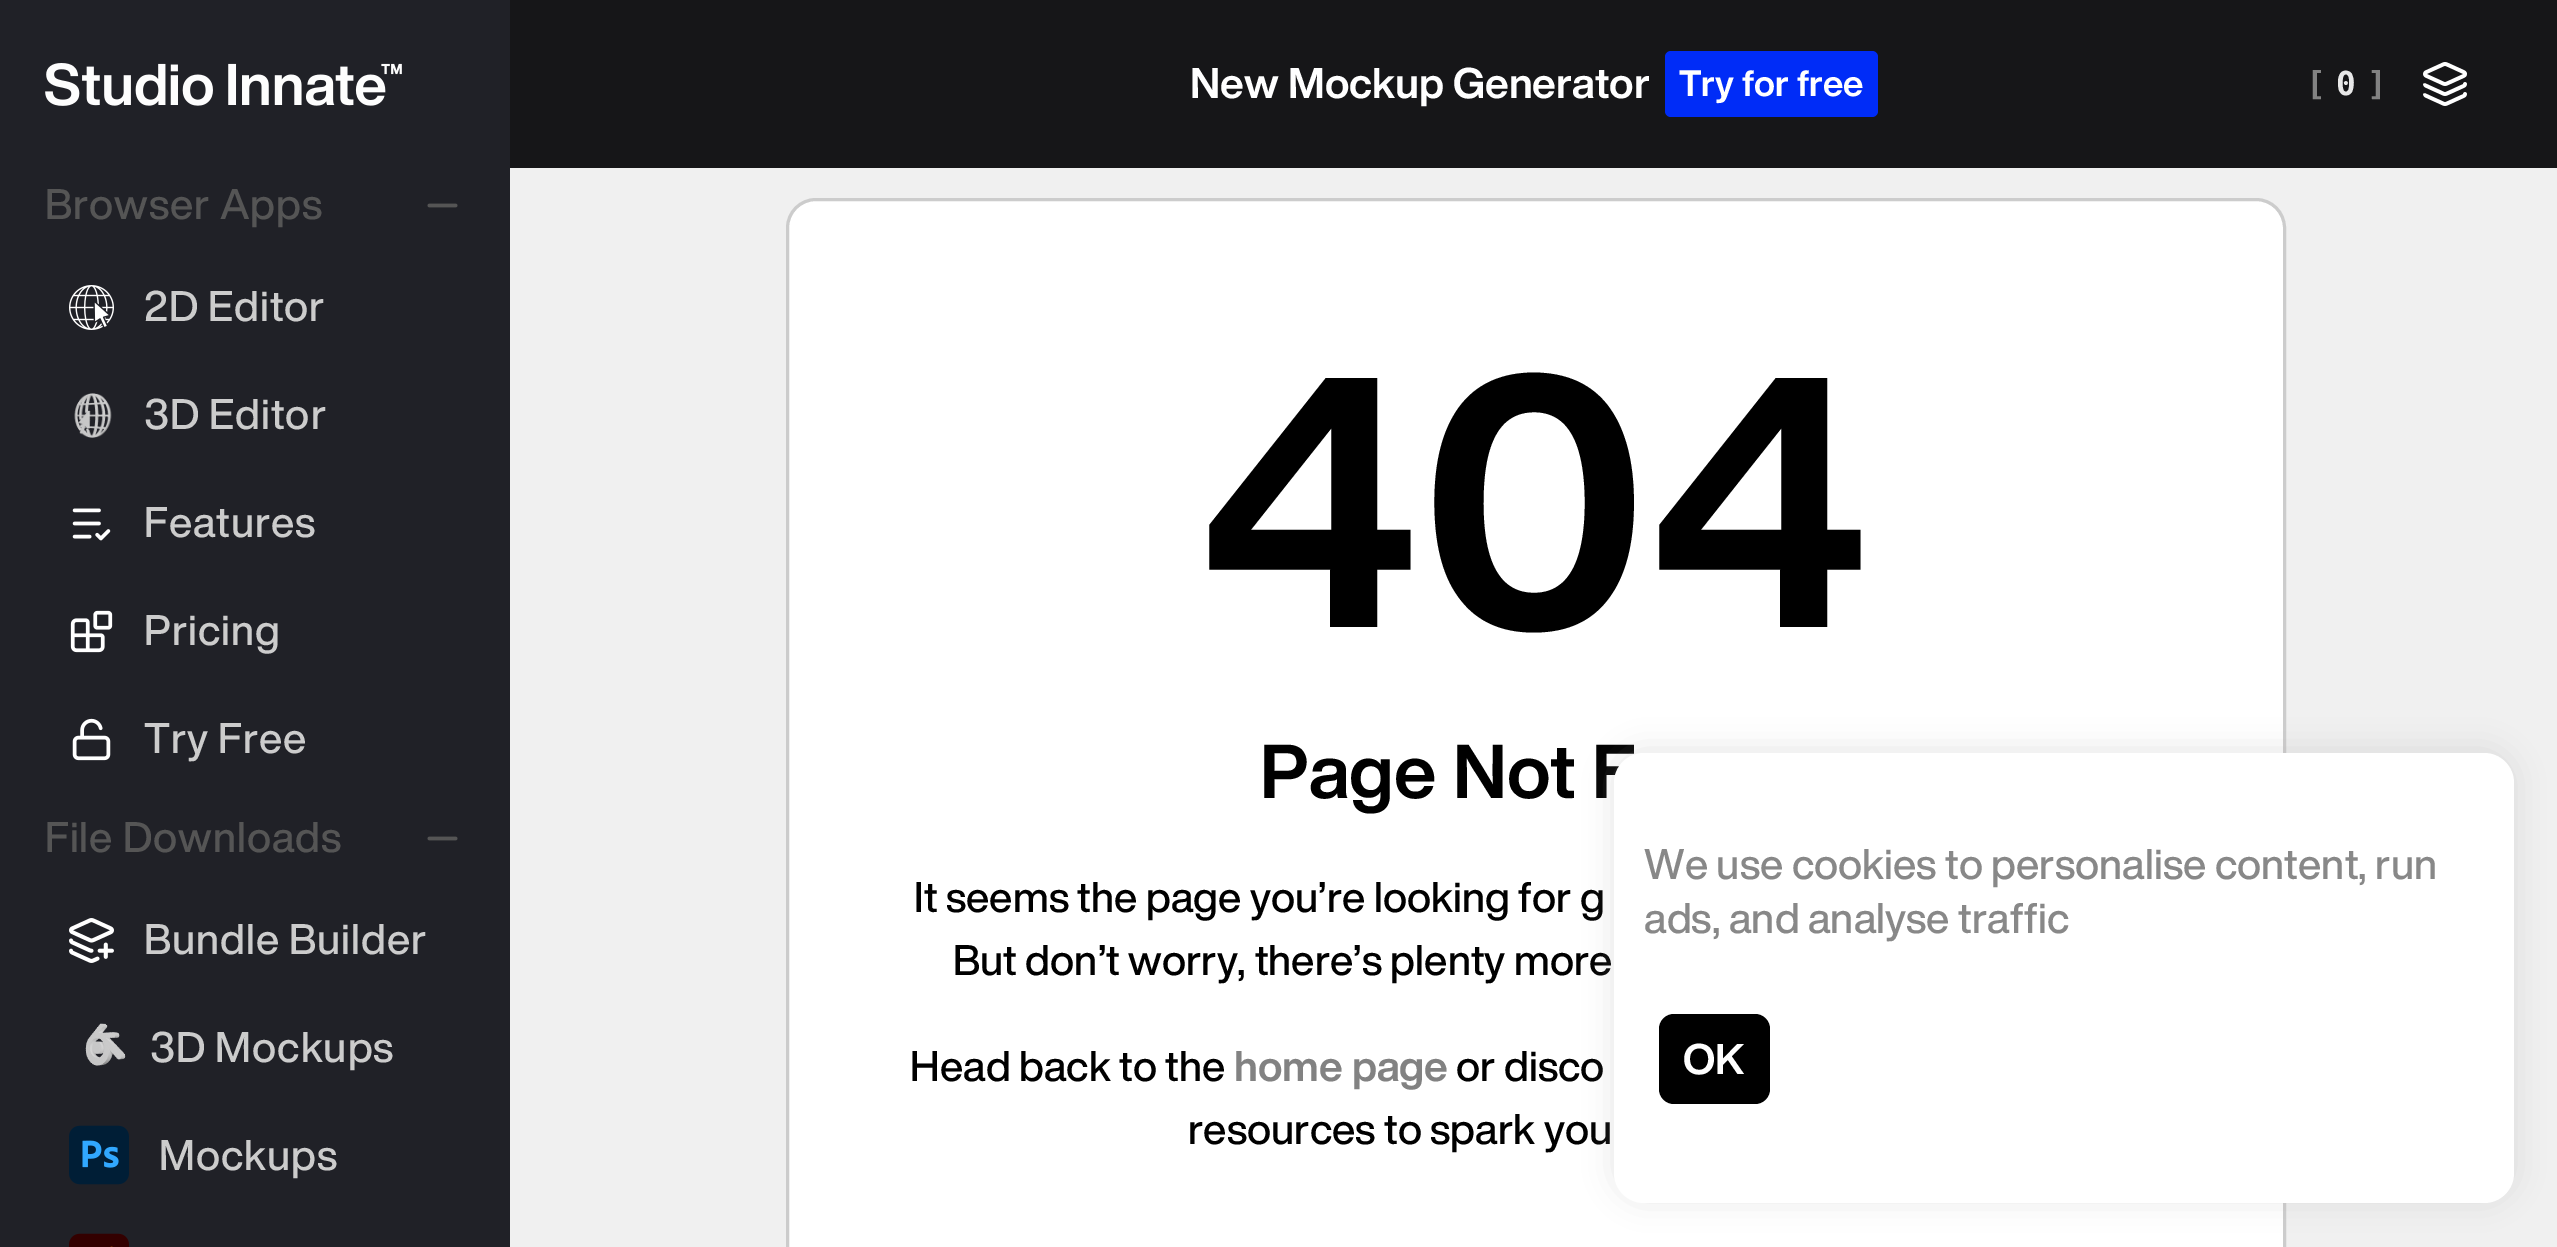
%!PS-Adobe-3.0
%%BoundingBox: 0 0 2557 1247
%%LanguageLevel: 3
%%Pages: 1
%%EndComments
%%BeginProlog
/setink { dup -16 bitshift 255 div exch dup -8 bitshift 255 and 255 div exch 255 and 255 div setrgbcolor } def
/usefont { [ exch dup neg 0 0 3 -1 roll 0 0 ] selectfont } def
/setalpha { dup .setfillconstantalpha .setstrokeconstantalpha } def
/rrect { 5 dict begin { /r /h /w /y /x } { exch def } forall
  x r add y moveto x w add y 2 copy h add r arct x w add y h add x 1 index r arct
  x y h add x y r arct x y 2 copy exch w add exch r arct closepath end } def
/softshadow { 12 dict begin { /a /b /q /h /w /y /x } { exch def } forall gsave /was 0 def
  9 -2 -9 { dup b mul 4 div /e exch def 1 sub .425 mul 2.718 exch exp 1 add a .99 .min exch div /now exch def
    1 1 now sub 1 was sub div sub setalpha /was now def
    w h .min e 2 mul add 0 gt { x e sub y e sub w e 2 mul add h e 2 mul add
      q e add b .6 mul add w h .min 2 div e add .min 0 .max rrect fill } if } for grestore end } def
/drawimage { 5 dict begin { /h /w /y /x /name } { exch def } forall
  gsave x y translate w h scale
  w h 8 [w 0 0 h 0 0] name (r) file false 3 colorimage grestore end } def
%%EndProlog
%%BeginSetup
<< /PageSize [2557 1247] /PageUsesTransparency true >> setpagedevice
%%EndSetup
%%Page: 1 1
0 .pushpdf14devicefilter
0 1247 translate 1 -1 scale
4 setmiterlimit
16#F0F0F0 setink
0 0 2557 1247 rectfill
16#161618 setink
510 0 2047 168 rectfill
/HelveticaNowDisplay-Bold 42 usefont
16#FFFFFF setink
1190 98 moveto (New Mockup Generator) show
16#002CF7 setink
1665 51 213 66 6 rrect fill
/HelveticaNowDisplay-Bold 36 usefont
16#FFFFFF setink
1679 96 moveto (Try for free) show
/DejaVuSansMono-Bold 33 usefont
16#828282 setink
2306 95 moveto 2 0 ([) ashow
16#E8E8E8 setink
2336 95 moveto 2 0 (0) ashow
16#828282 setink
2367 95 moveto 2 0 (]) ashow
(img1.raw) 2423 62 44 44 drawimage
16#202127 setink
0 0 510 1247 rectfill
(img2.raw) 45 63 357 43 drawimage
/HelveticaNowDisplay-Medium 42 usefont
16#555555 setink
45 219 moveto 0.9 0 (Browser Apps) ashow
(img3.raw) 427 203 31 5 drawimage
(img4.raw) 69 285 45 45 drawimage
16#CCCCCC setink
144 321 moveto 0.9 0 (2D Editor) ashow
(img5.raw) 74 393 38 45 drawimage
144 429 moveto 0.9 0 (3D Editor) ashow
(img6.raw) 72 508 39 33 drawimage
144 537 moveto 0.9 0 (Features) ashow
(img7.raw) 70 610 43 43 drawimage
144 645 moveto 0.9 0 (Pricing) ashow
(img8.raw) 72 718 39 43 drawimage
144 753 moveto 0.9 0 (Try Free) ashow
16#555555 setink
45 852 moveto 0.9 0 (File Downloads) ashow
(img3.raw) 427 836 31 5 drawimage
(img9.raw) 69 918 45 45 drawimage
16#CCCCCC setink
144 954 moveto 0.9 0 (Bundle Builder) ashow
(img10.raw) 85 1023 41 43 drawimage
150 1062 moveto 0.9 0 (3D Mockups) ashow
(img11.raw) 69 1125 60 60 drawimage
159 1170 moveto 0.9 0 (Mockups) ashow
(img12.raw) 69 1233 60 14 drawimage
16#FFFFFF setink
787.5 199.5 1497 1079 28.5 rrect gsave fill grestore
16#CCCCCC setink
3 setlinewidth
stroke
/HelveticaNowDisplay-Bold 351 usefont
16#000000 setink
1199 627 moveto (404) show
/HelveticaNowDisplay-Bold 75 usefont
1260 798 moveto (Page Not F) show
/HelveticaNowDisplay-Medium 42 usefont
[
    [(It seems the page you’re looking for g) 914 912]
    [(But don’t worry, there’s plenty more) 953 975]
    [(Head back to the) 910 1081]
] { aload pop moveto show } forall
/HelveticaNowDisplay-Bold 42 usefont
16#828282 setink
1234 1081 moveto (home page) show
/HelveticaNowDisplay-Medium 42 usefont
16#000000 setink
1456 1081 moveto (or disco) show
1188 1144 moveto (resources to spark you) show
16#ACABAB setink
1614 750 900 450 30 15 0.3 softshadow
16#FFFFFF setink
1614 753 900 450 30 rrect fill
16#888888 setink
1644 879 moveto (We use cookies to personalise content, run) show
1644 933 moveto (ads, and analyse traffic) show
16#000000 setink
1659 1014 111 90 15 rrect fill
/HelveticaNowDisplay-Bold 42 usefont
16#FFFFFF setink
1683 1074 moveto (OK) show
.poppdf14devicefilter showpage
%%EOF
